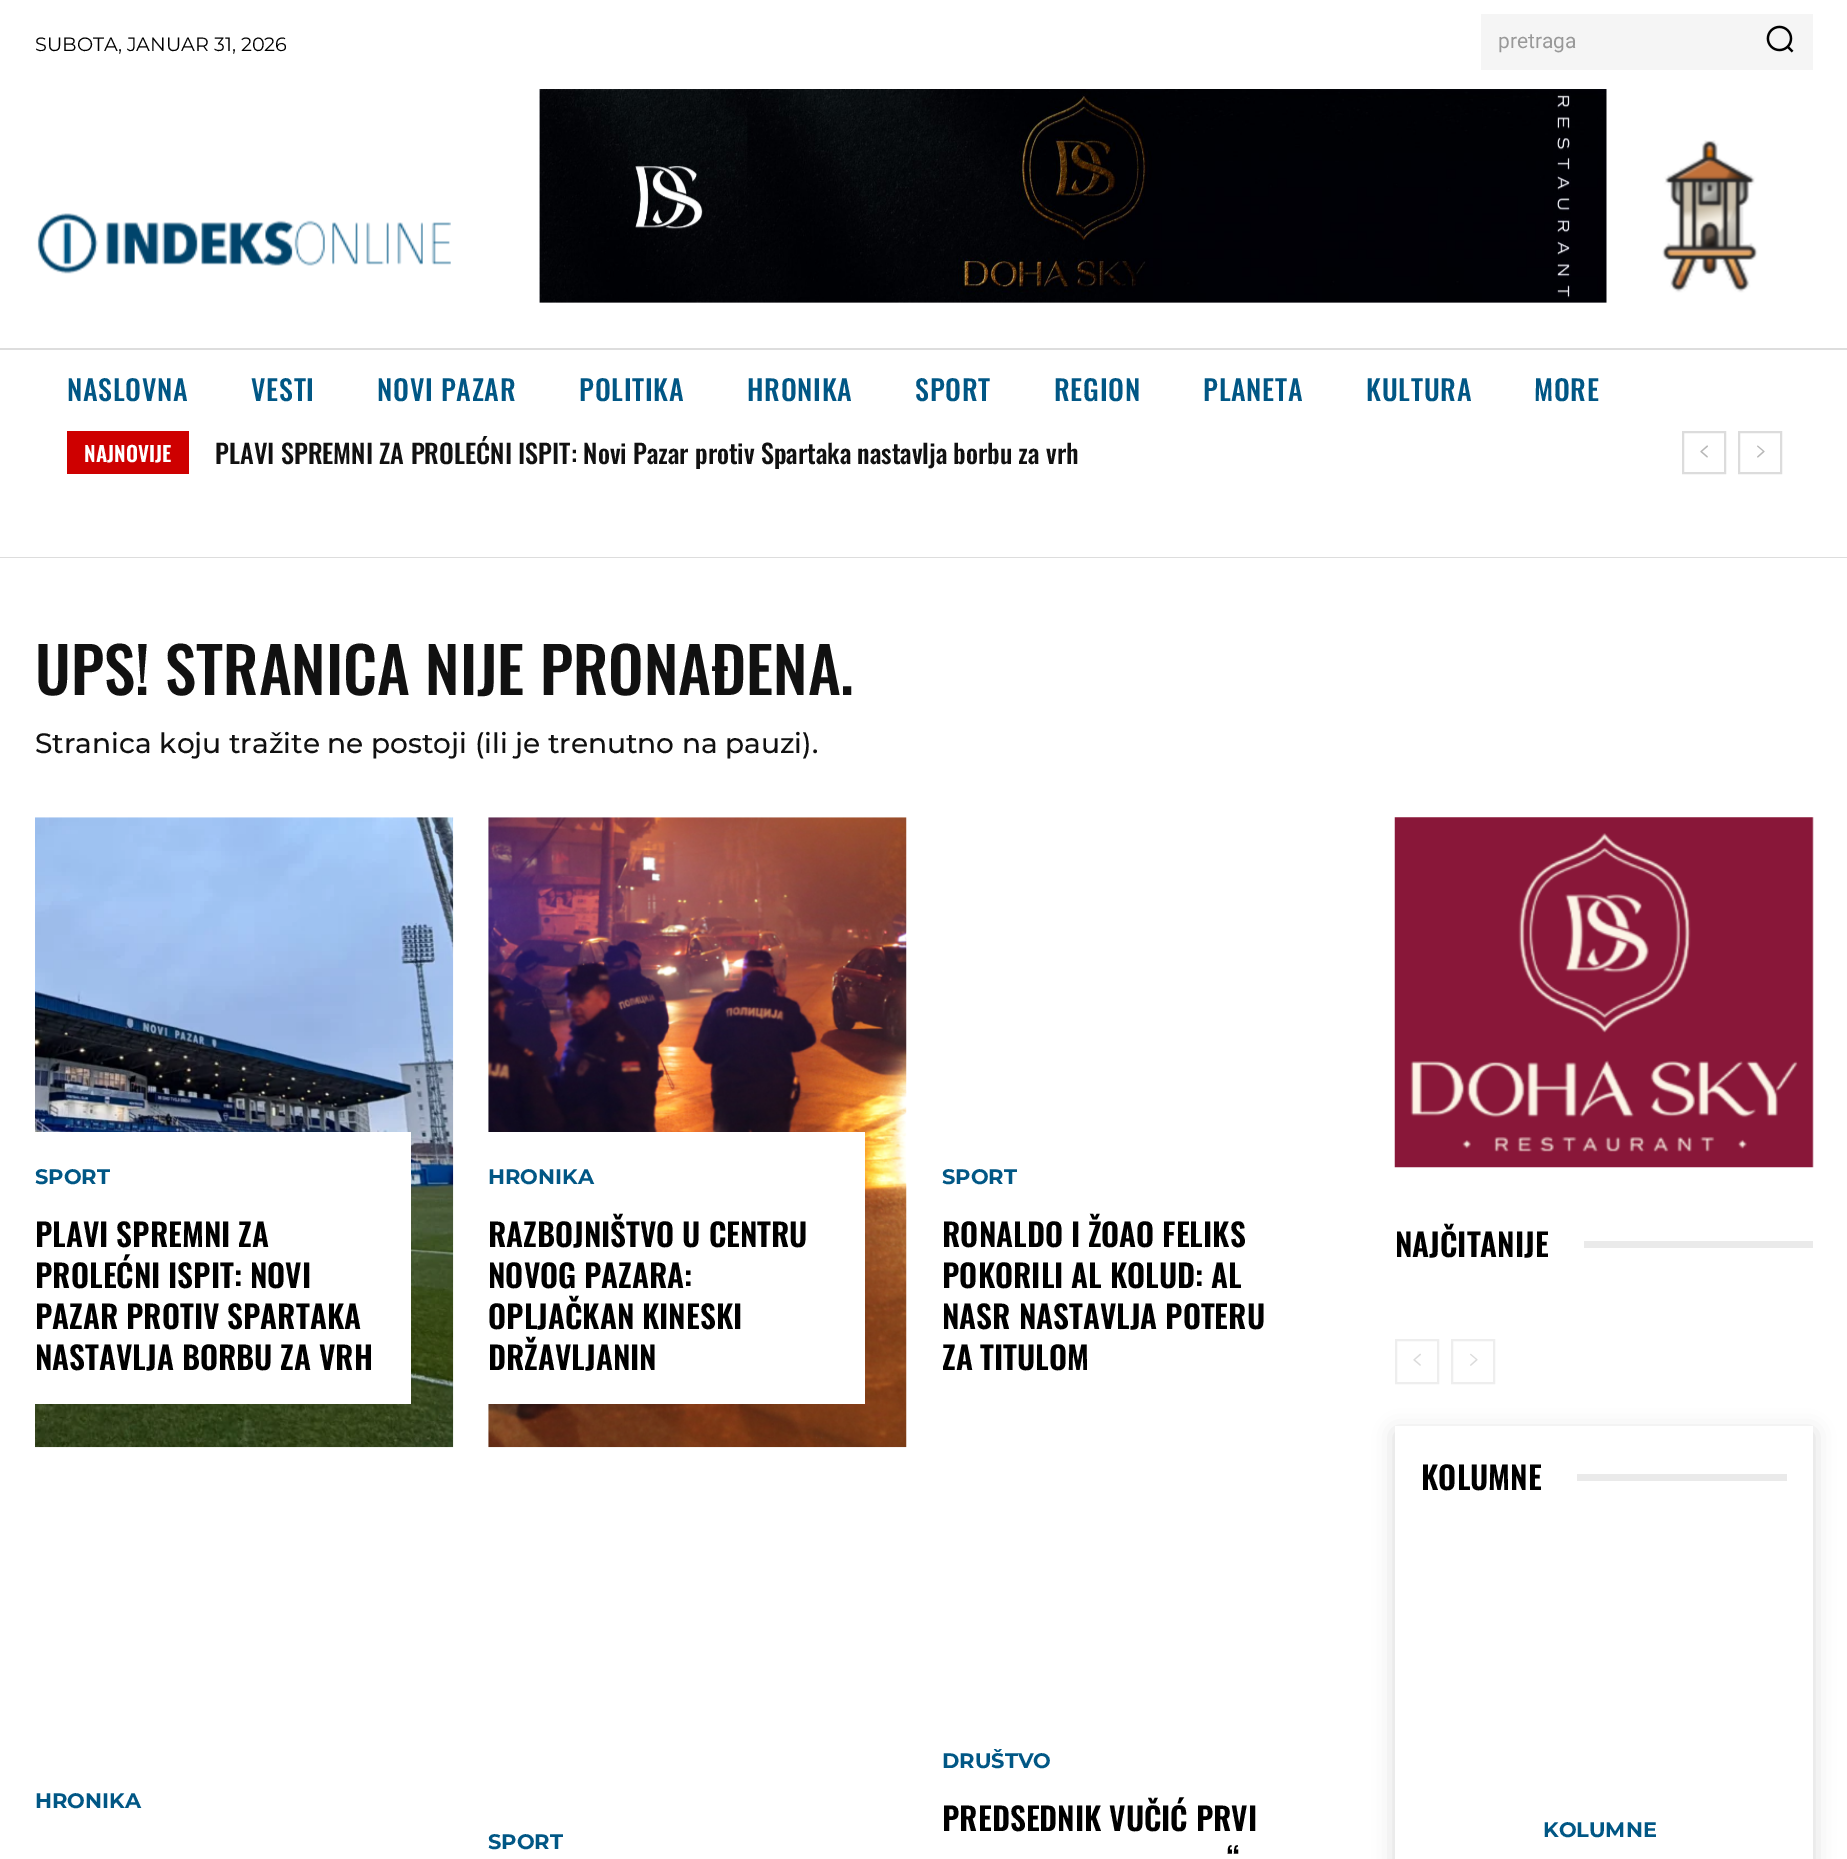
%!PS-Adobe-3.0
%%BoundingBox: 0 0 1847 1859
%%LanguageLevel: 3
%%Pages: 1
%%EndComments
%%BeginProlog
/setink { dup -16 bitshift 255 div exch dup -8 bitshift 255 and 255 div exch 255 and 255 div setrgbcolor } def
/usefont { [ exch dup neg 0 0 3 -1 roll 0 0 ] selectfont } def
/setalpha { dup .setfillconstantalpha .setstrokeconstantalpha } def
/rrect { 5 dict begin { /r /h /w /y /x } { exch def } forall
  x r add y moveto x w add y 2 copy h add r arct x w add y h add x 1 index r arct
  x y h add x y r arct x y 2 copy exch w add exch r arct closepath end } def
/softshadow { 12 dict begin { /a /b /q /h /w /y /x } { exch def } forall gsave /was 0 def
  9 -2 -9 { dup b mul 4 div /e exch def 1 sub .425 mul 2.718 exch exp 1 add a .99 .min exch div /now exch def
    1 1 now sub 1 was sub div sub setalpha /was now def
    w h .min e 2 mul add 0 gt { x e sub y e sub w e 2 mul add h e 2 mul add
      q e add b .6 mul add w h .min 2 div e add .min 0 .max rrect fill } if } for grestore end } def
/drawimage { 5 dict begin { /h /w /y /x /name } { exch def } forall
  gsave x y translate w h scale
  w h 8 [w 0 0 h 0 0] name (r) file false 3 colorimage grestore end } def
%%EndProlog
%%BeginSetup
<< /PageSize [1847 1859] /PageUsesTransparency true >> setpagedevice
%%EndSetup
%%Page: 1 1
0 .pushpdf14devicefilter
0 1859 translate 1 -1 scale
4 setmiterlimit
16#FFFFFF setink
0 0 1847 1859 rectfill
/Montserrat-Regular 19.25 usefont
16#000000 setink
35 51 moveto (SUBOTA, JANUAR 31, 2026) show
16#F5F5F5 setink
1481 14 332 56 rectfill
/Roboto-Regular 21 usefont
16#999999 setink
1498 48 moveto (pretraga) show
(img1.raw) 1766 25 28 28 drawimage
(img2.raw) 37 213 414 61 drawimage
(img3.raw) 539 89 1068 214 drawimage
(img4.raw) 1662 140 96 153 drawimage
16#DDDDDD setink
0 348 1847 2 rectfill
0 557 1847 1 rectfill
/Oswald-Medium 28 usefont
16#015785 setink
67 401 moveto 0.75 0 (NASLOVNA) ashow
251 401 moveto 0.75 0 (VESTI) ashow
377 401 moveto 0.75 0 (NOVI PAZAR) ashow
579 401 moveto 0.75 0 (POLITIKA) ashow
747 401 moveto 0.75 0 (HRONIKA) ashow
915 401 moveto 0.75 0 (SPORT) ashow
1054 401 moveto 0.75 0 (REGION) ashow
1203 401 moveto 0.75 0 (PLANETA) ashow
1366 401 moveto 0.75 0 (KULTURA) ashow
1534 401 moveto 0.75 0 (MORE) ashow
16#CE0000 setink
67 431 122 43 rectfill
/Oswald-SemiBold 21 usefont
16#FFFFFF setink
84 462 moveto (NAJNOVIJE) show
/Oswald-Medium 26.25 usefont
16#111111 setink
215 464 moveto (PLAVI SPREMNI ZA PROLEĆNI ISPIT: Novi Pazar protiv Spartaka nastavlja borbu za vrh) show
16#DCDCDC setink
2 setlinewidth
1683 432 42 41 rectstroke
(img5.raw) 1700 445 8 13 drawimage
1739 432 42 41 rectstroke
(img6.raw) 1757 445 8 13 drawimage
/Oswald-Medium 63 usefont
16#111111 setink
35 695 moveto (UPS! STRANICA NIJE PRONAĐENA.) show
/Montserrat-Medium 28 usefont
35 753 moveto (Stranica koju tražite ne postoji \(ili je trenutno na pauzi\).) show
(img7.raw) 35 817 419 631 drawimage
16#FFFFFF setink
35 1132 376 272 rectfill
/Montserrat-Bold 21 usefont
16#015785 setink
35 1184 moveto (SPORT) show
/Oswald-SemiBold 31.5 usefont
16#000000 setink
[
    [(PLAVI SPREMNI ZA) 35 1247]
    [(PROLEĆNI ISPIT: NOVI) 35 1288]
    [(PAZAR PROTIV SPARTAKA) 35 1329]
    [(NASTAVLJA BORBU ZA VRH) 35 1370]
] { aload pop moveto show } forall
/Montserrat-Bold 21 usefont
16#015785 setink
35 1808 moveto (HRONIKA) show
(img8.raw) 488 817 419 631 drawimage
16#FFFFFF setink
488 1132 377 272 rectfill
16#015785 setink
488 1184 moveto (HRONIKA) show
/Oswald-SemiBold 31.5 usefont
16#000000 setink
[
    [(RAZBOJNIŠTVO U CENTRU) 488 1247]
    [(NOVOG PAZARA:) 488 1288]
    [(OPLJAČKAN KINESKI) 488 1329]
    [(DRŽAVLJANIN) 488 1370]
] { aload pop moveto show } forall
/Montserrat-Bold 21 usefont
16#015785 setink
488 1849 moveto (SPORT) show
942 1184 moveto (SPORT) show
/Oswald-SemiBold 31.5 usefont
16#000000 setink
[
    [(RONALDO I ŽOAO FELIKS) 942 1247]
    [(POKORILI AL KOLUD: AL) 942 1288]
    [(NASR NASTAVLJA POTERU) 942 1329]
    [(ZA TITULOM) 942 1370]
] { aload pop moveto show } forall
/Montserrat-Bold 21 usefont
16#015785 setink
942 1768 moveto (DRUŠTVO) show
/Oswald-SemiBold 31.5 usefont
16#000000 setink
942 1831 moveto (PREDSEDNIK VUČIĆ PRVI) show
1227 1871 moveto (“) show
(img9.raw) 1394 817 420 351 drawimage
1395 1257 moveto (NAJČITANIJE) show
16#EAEAEA setink
1584 1241 229 7 rectfill
16#EEEEEE setink
1396 1340 42 43 rectstroke
(img10.raw) 1413 1353 8 13 drawimage
1452 1340 42 43 rectstroke
(img11.raw) 1470 1353 8 13 drawimage
gsave
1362 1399 moveto 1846 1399 lineto 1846 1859 lineto 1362 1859 lineto closepath 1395 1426 moveto 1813 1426 lineto 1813 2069 lineto 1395 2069 lineto closepath eoclip newpath
16#000000 setink
1395 1432 418 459 0 10.5 0.15 softshadow
grestore
16#000000 setink
1421 1490 moveto (KOLUMNE) show
16#EAEAEA setink
1577 1474 210 7 rectfill
/Montserrat-Bold 21 usefont
16#015785 setink
1543 1837 moveto (KOLUMNE) show
.poppdf14devicefilter showpage
%%EOF
